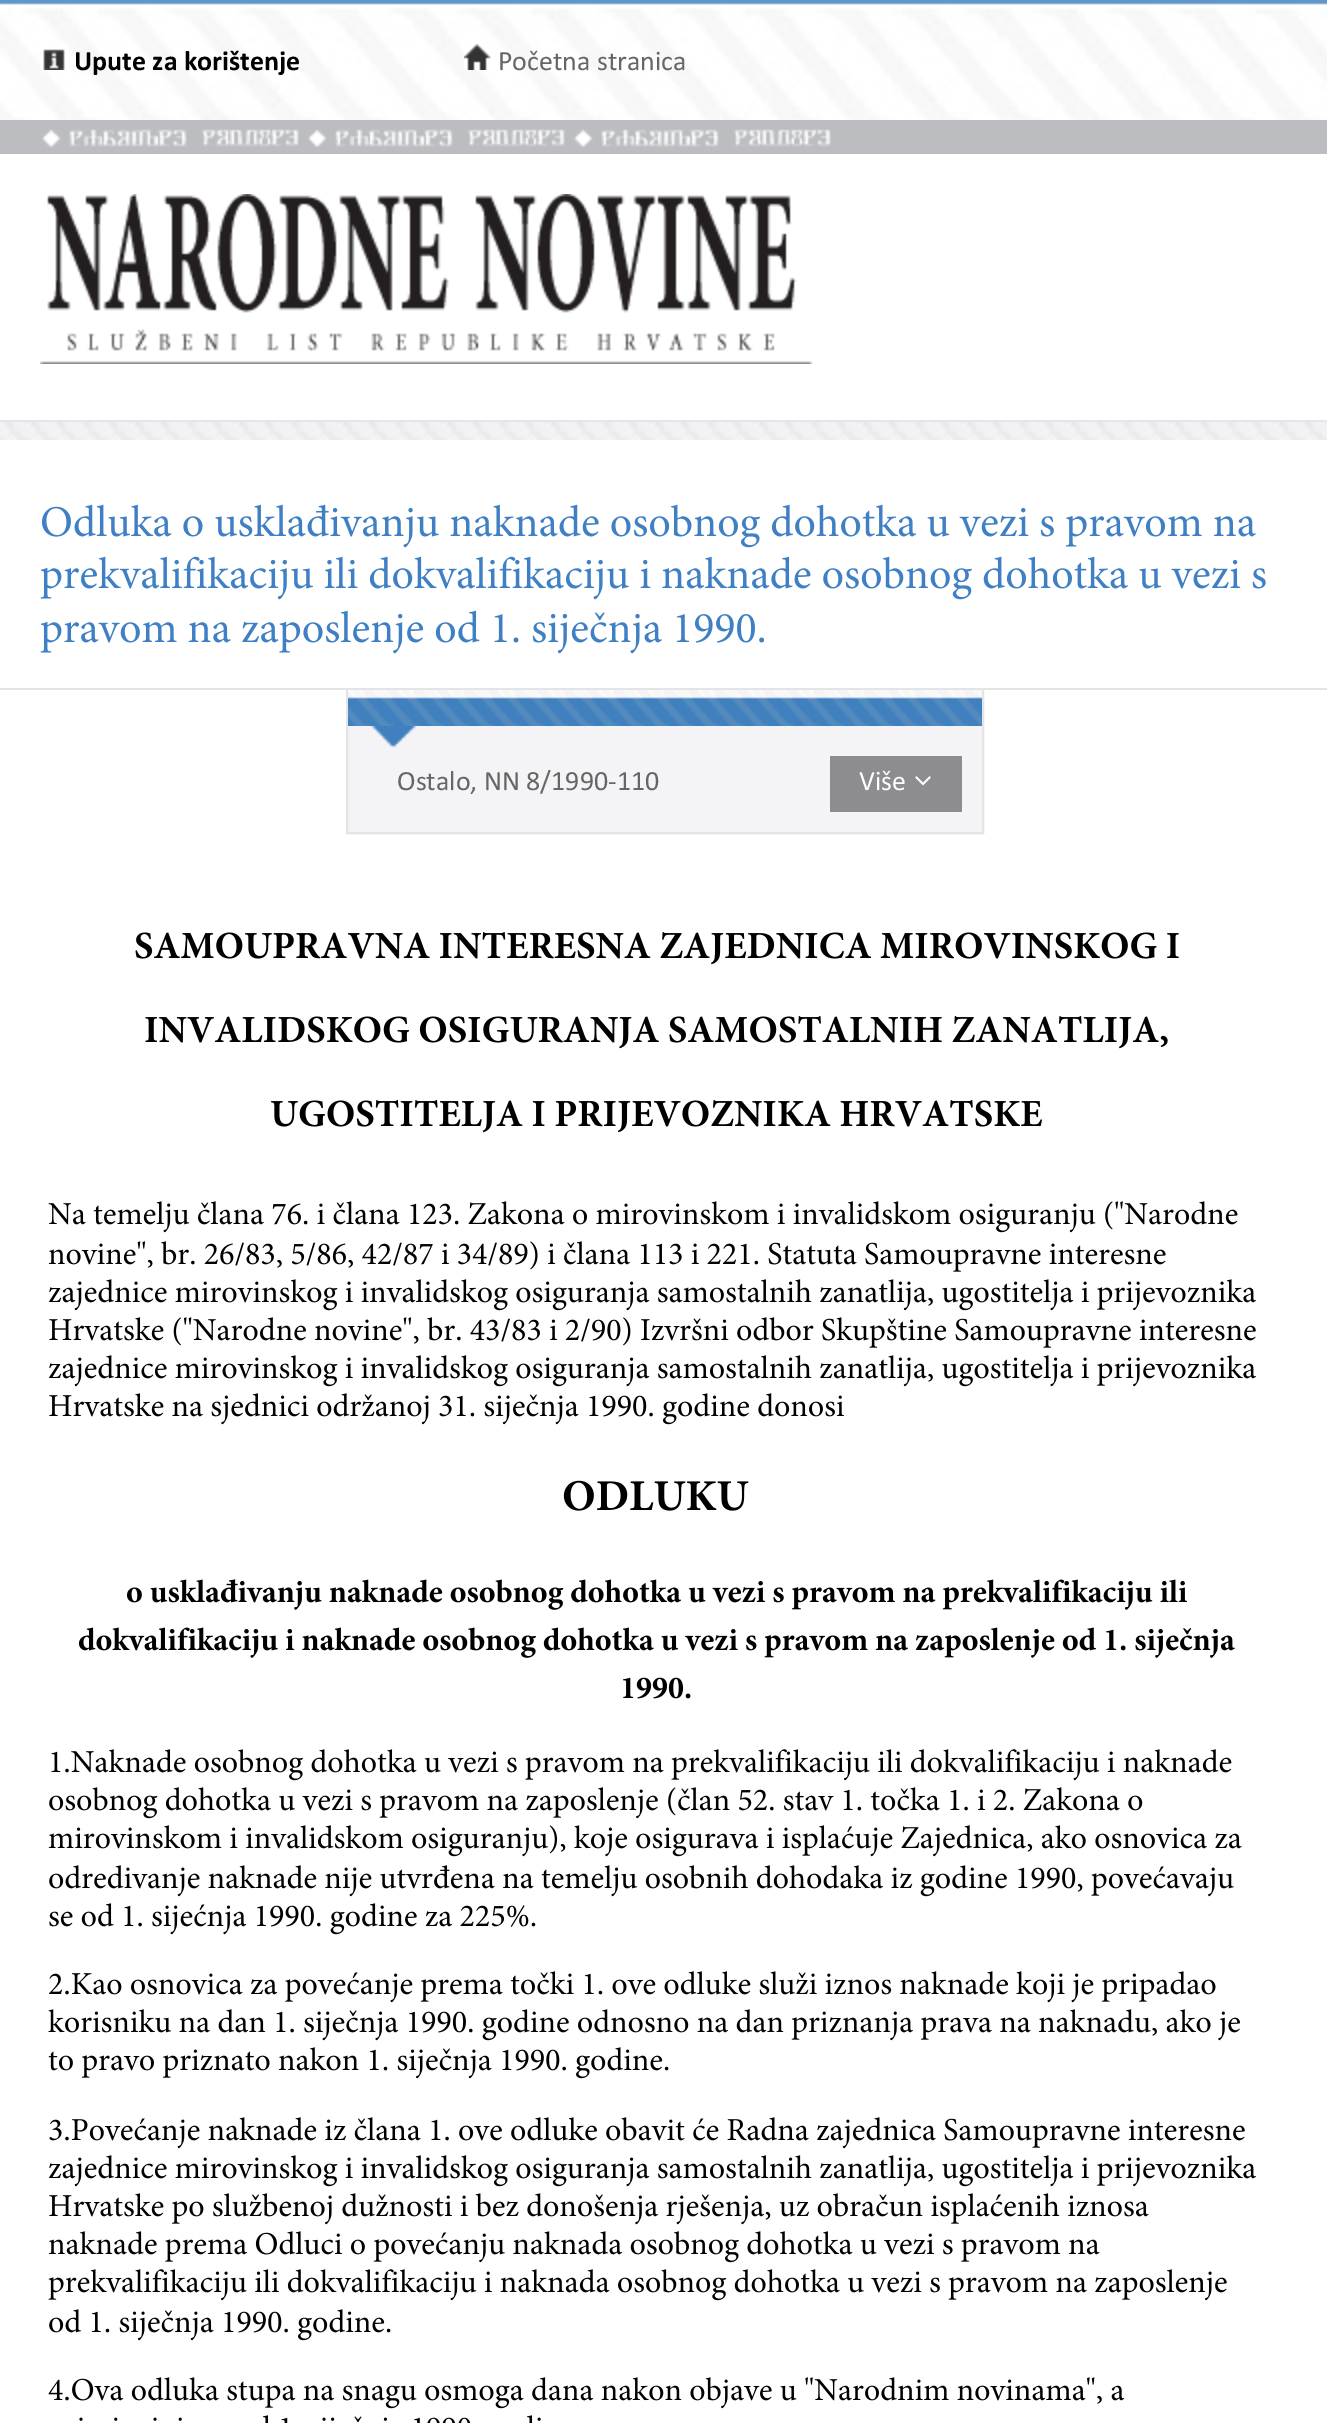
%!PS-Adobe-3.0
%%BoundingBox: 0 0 1327 2423
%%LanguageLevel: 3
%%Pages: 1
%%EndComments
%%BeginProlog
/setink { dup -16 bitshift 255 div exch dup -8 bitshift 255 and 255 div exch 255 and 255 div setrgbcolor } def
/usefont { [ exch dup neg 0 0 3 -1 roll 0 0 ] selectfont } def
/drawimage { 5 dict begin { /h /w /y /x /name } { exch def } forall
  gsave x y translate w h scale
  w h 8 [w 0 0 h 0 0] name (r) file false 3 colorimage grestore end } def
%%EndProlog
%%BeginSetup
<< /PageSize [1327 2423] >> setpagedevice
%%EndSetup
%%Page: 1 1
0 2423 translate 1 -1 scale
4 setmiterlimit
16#FFFFFF setink
0 0 1327 2423 rectfill
(img1.raw) 0 0 1327 120 drawimage
(img2.raw) 40 44 28 26 drawimage
/Calibri-Bold 28 usefont
16#000000 setink
74 70 moveto (Upute za korištenje) show
(img3.raw) 464 44 27 26 drawimage
/Calibri-Regular 28 usefont
16#666666 setink
498 70 moveto (Početna stranica) show
16#BCBDC0 setink
0 120 1327 34 rectfill
(img4.raw) 42 129 257 19 drawimage
(img4.raw) 308 129 257 19 drawimage
(img4.raw) 574 129 257 19 drawimage
(img5.raw) 40 194 772 170 drawimage
(img6.raw) 0 420 1327 20 drawimage
(img7.raw) 41 504 1215 44 drawimage
(img8.raw) 40 556 1226 44 drawimage
(img9.raw) 40 610 725 44 drawimage
16#E4E4E6 setink
0 688 1327 2 rectfill
(img10.raw) 135 932 1044 33 drawimage
(img11.raw) 145 1016 1023 33 drawimage
(img12.raw) 271 1100 771 33 drawimage
(img13.raw) 48 1201 1190 32 drawimage
(img14.raw) 48 1241 1118 31 drawimage
(img15.raw) 49 1279 1207 32 drawimage
(img16.raw) 49 1317 1207 31 drawimage
(img15.raw) 49 1355 1207 32 drawimage
(img17.raw) 49 1393 795 32 drawimage
(img18.raw) 563 1480 186 31 drawimage
(img19.raw) 127 1579 1060 31 drawimage
(img20.raw) 78 1627 1157 31 drawimage
(img21.raw) 623 1677 68 22 drawimage
(img22.raw) 51 1749 1181 32 drawimage
(img23.raw) 49 1787 1094 32 drawimage
(img24.raw) 48 1825 1194 32 drawimage
(img25.raw) 49 1865 1185 32 drawimage
(img26.raw) 49 1903 487 32 drawimage
(img27.raw) 49 1971 1167 32 drawimage
(img28.raw) 48 2009 1192 32 drawimage
(img29.raw) 48 2047 621 32 drawimage
(img30.raw) 49 2117 1196 32 drawimage
(img15.raw) 49 2155 1207 32 drawimage
(img31.raw) 49 2193 1100 32 drawimage
(img32.raw) 48 2231 1052 32 drawimage
(img33.raw) 48 2269 1179 32 drawimage
(img34.raw) 49 2309 342 32 drawimage
(img35.raw) 48 2377 1077 32 drawimage
(img36.raw) 79 2415 462 8 drawimage
16#F4F4F6 setink
348 726 634 106 rectfill
16#E4E4E6 setink
2 setlinewidth
347 689 636 144 rectstroke
(img37.raw) 348 690 634 36 drawimage
(img38.raw) 371 726 45 22 drawimage
16#666666 setink
397 790 moveto (Ostalo, NN 8/1990-110) show
16#8D8D90 setink
830 756 132 56 rectfill
16#FFFFFF setink
859 790 moveto (Više) show
(img39.raw) 915 776 16 10 drawimage
showpage
%%EOF
